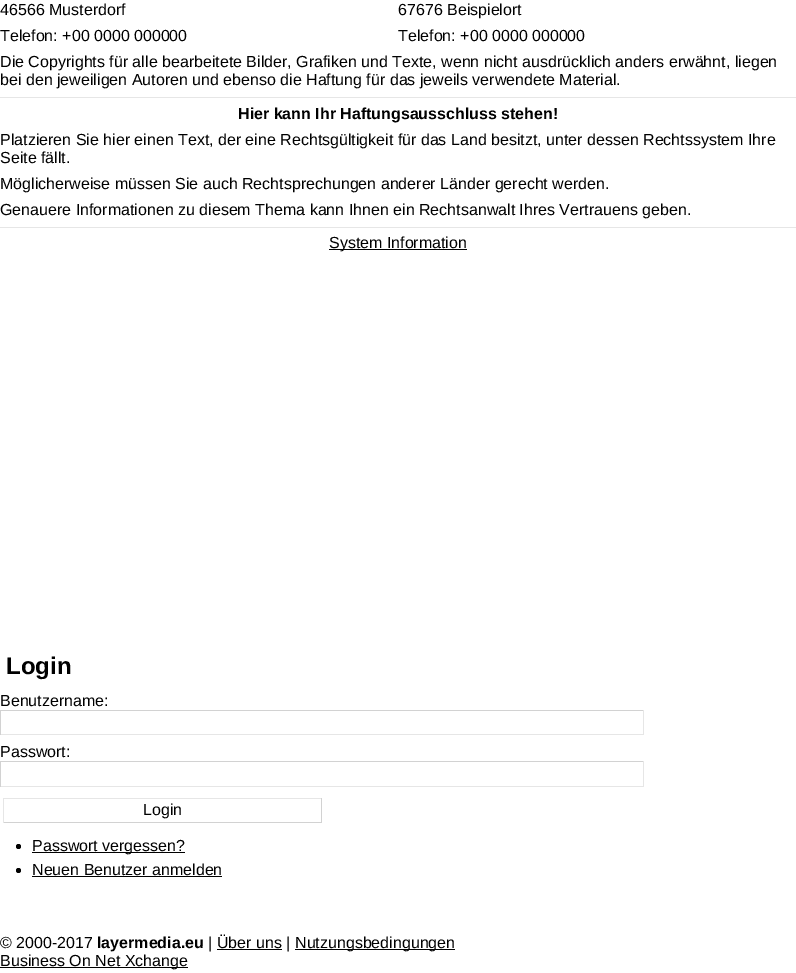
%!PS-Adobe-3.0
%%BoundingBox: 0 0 796 973
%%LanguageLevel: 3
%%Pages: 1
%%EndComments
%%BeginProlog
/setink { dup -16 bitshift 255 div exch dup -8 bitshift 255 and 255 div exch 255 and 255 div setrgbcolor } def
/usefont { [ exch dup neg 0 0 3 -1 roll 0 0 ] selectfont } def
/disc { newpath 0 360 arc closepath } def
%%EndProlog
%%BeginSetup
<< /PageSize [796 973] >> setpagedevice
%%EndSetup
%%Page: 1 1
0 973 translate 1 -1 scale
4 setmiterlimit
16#FFFFFF setink
0 0 796 973 rectfill
/LiberationSans-Regular 16 usefont
16#000000 setink
[
    [(46566 Musterdorf) 0 15]
    [(Telefon: +00 0000 000000) 0 41]
    [(67676 Beispielort) 398 15]
    [(Telefon: +00 0000 000000) 398 41]
    [(Die Copyrights für alle bearbeitete Bilder, Grafiken und Texte, wenn nicht ausdrücklich anders erwähnt, liegen) 0 67]
    [(bei den jeweiligen Autoren und ebenso die Haftung für das jeweils verwendete Material.) 0 85]
] { aload pop moveto show } forall
16#E6E6E6 setink
0 97 796 1 rectfill
/LiberationSans-Bold 16 usefont
16#000000 setink
238 119 moveto (Hier kann Ihr Haftungsausschluss stehen!) show
/LiberationSans-Regular 16 usefont
[
    [(Platzieren Sie hier einen Text, der eine Rechtsgültigkeit für das Land besitzt, unter dessen Rechtssystem Ihre) 0 145]
    [(Seite fällt.) 0 163]
    [(Möglicherweise müssen Sie auch Rechtsprechungen anderer Länder gerecht werden.) 0 189]
    [(Genauere Informationen zu diesem Thema kann Ihnen ein Rechtsanwalt Ihres Vertrauens geben.) 0 215]
] { aload pop moveto show } forall
16#E6E6E6 setink
0 227 796 1 rectfill
16#000000 setink
329 249 138 1 rectfill
329 248 moveto (System Information) show
/LiberationSans-Bold 24 usefont
6 674 moveto (Login) show
/LiberationSans-Regular 16 usefont
0 706 moveto (Benutzername:) show
[
    [0 710 644 1 16#D2D2D2]
    [643 710 1 25 16#E6E6E6]
    [0 734 644 1 16#E6E6E6]
    [0 710 1 25 16#D2D2D2]
] { aload pop setink rectfill } forall
16#000000 setink
0 757 moveto (Passwort:) show
[
    [0 761 644 1 16#D2D2D2]
    [643 761 1 26 16#E6E6E6]
    [0 786 644 1 16#E6E6E6]
    [0 761 1 26 16#D2D2D2]
    [3 798 319 1 16#E6E6E6]
    [321 798 1 25 16#D2D2D2]
    [3 822 319 1 16#D2D2D2]
    [3 798 1 25 16#E6E6E6]
] { aload pop setink rectfill } forall
16#000000 setink
143 815 moveto (Login) show
18.5 846.5 2.5 disc fill
32 852 153 1 rectfill
32 851 moveto (Passwort vergessen?) show
18.5 870.5 2.5 disc fill
32 875 moveto (Neuen Benutzer anmelden) show
32 876 190 1 rectfill
0 948 moveto (© 2000-2017) show
/LiberationSans-Bold 16 usefont
97 948 moveto (layermedia.eu) show
/LiberationSans-Regular 16 usefont
208 948 moveto (| Über uns |) show
295 949 160 1 rectfill
295 948 moveto (Nutzungsbedingungen) show
217 949 65 1 rectfill
0 967 188 1 rectfill
0 966 moveto (Business On Net Xchange) show
showpage
%%EOF
